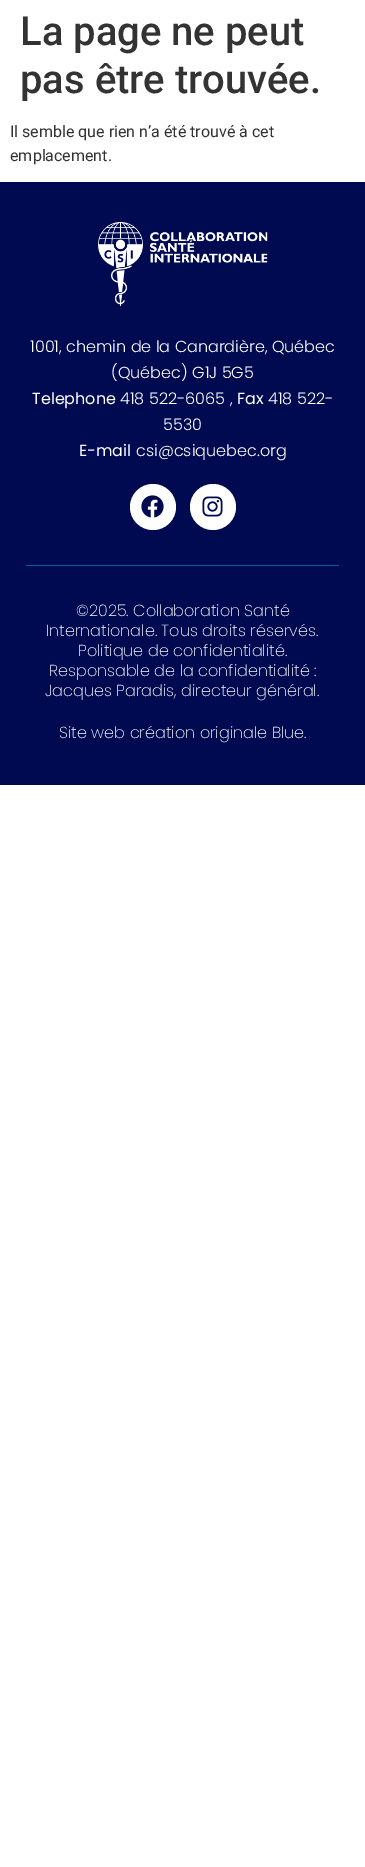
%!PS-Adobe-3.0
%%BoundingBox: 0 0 365 1867
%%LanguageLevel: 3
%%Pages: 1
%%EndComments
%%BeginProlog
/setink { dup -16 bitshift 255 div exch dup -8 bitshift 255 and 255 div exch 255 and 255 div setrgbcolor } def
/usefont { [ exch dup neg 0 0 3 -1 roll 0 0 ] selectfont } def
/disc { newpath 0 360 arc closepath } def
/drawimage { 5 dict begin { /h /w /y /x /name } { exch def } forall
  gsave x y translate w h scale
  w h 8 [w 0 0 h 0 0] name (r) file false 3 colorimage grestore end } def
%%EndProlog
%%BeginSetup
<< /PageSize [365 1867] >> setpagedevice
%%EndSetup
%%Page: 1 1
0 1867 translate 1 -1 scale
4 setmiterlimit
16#FFFFFF setink
0 0 365 1867 rectfill
/Roboto-Medium 40 usefont
16#333333 setink
20 45 moveto (La page ne peut) show
20 93 moveto (pas être trouvée.) show
/Roboto-Regular 16 usefont
10 137 moveto (Il semble que rien n’a été trouvé à cet) show
10 161 moveto (emplacement.) show
16#000A51 setink
0 182 365 603 rectfill
(img1.raw) 98 222 170 84 drawimage
/Poppins-Light 16 usefont
16#FFFFFF setink
30 352 moveto (1001, chemin de la Canardière, Québec) show
111 378 moveto (\(Québec\) G1J 5G5) show
/Poppins-Regular 16 usefont
32 404 moveto (Telephone) show
/Poppins-Light 16 usefont
120 404 moveto (418 522-6065 ,) show
/Poppins-Regular 16 usefont
237 404 moveto (Fax) show
/Poppins-Light 16 usefont
268 404 moveto (418 522-) show
163 430 moveto (5530) show
/Poppins-Regular 16 usefont
79 456 moveto (E-mail) show
/Poppins-Light 16 usefont
136 456 moveto (csi@csiquebec.org) show
153 507 23 disc fill
(img2.raw) 141 495 23 23 drawimage
213 507 23 disc fill
(img3.raw) 202 496 21 21 drawimage
16#005DAC setink
26 565 313 1 rectfill
/Poppins-ExtraLight 16 usefont
16#FFFFFF setink
[
    [(©2025. Collaboration Santé) 76 616]
    [(Internationale. Tous droits réservés.) 46 636]
    [(Politique de confidentialité.) 78 656]
    [(Responsable de la confidentialité :) 49 676]
    [(Jacques Paradis, directeur général.) 45 696]
    [(Site web création originale Blue.) 59 738]
] { aload pop moveto show } forall
showpage
%%EOF
